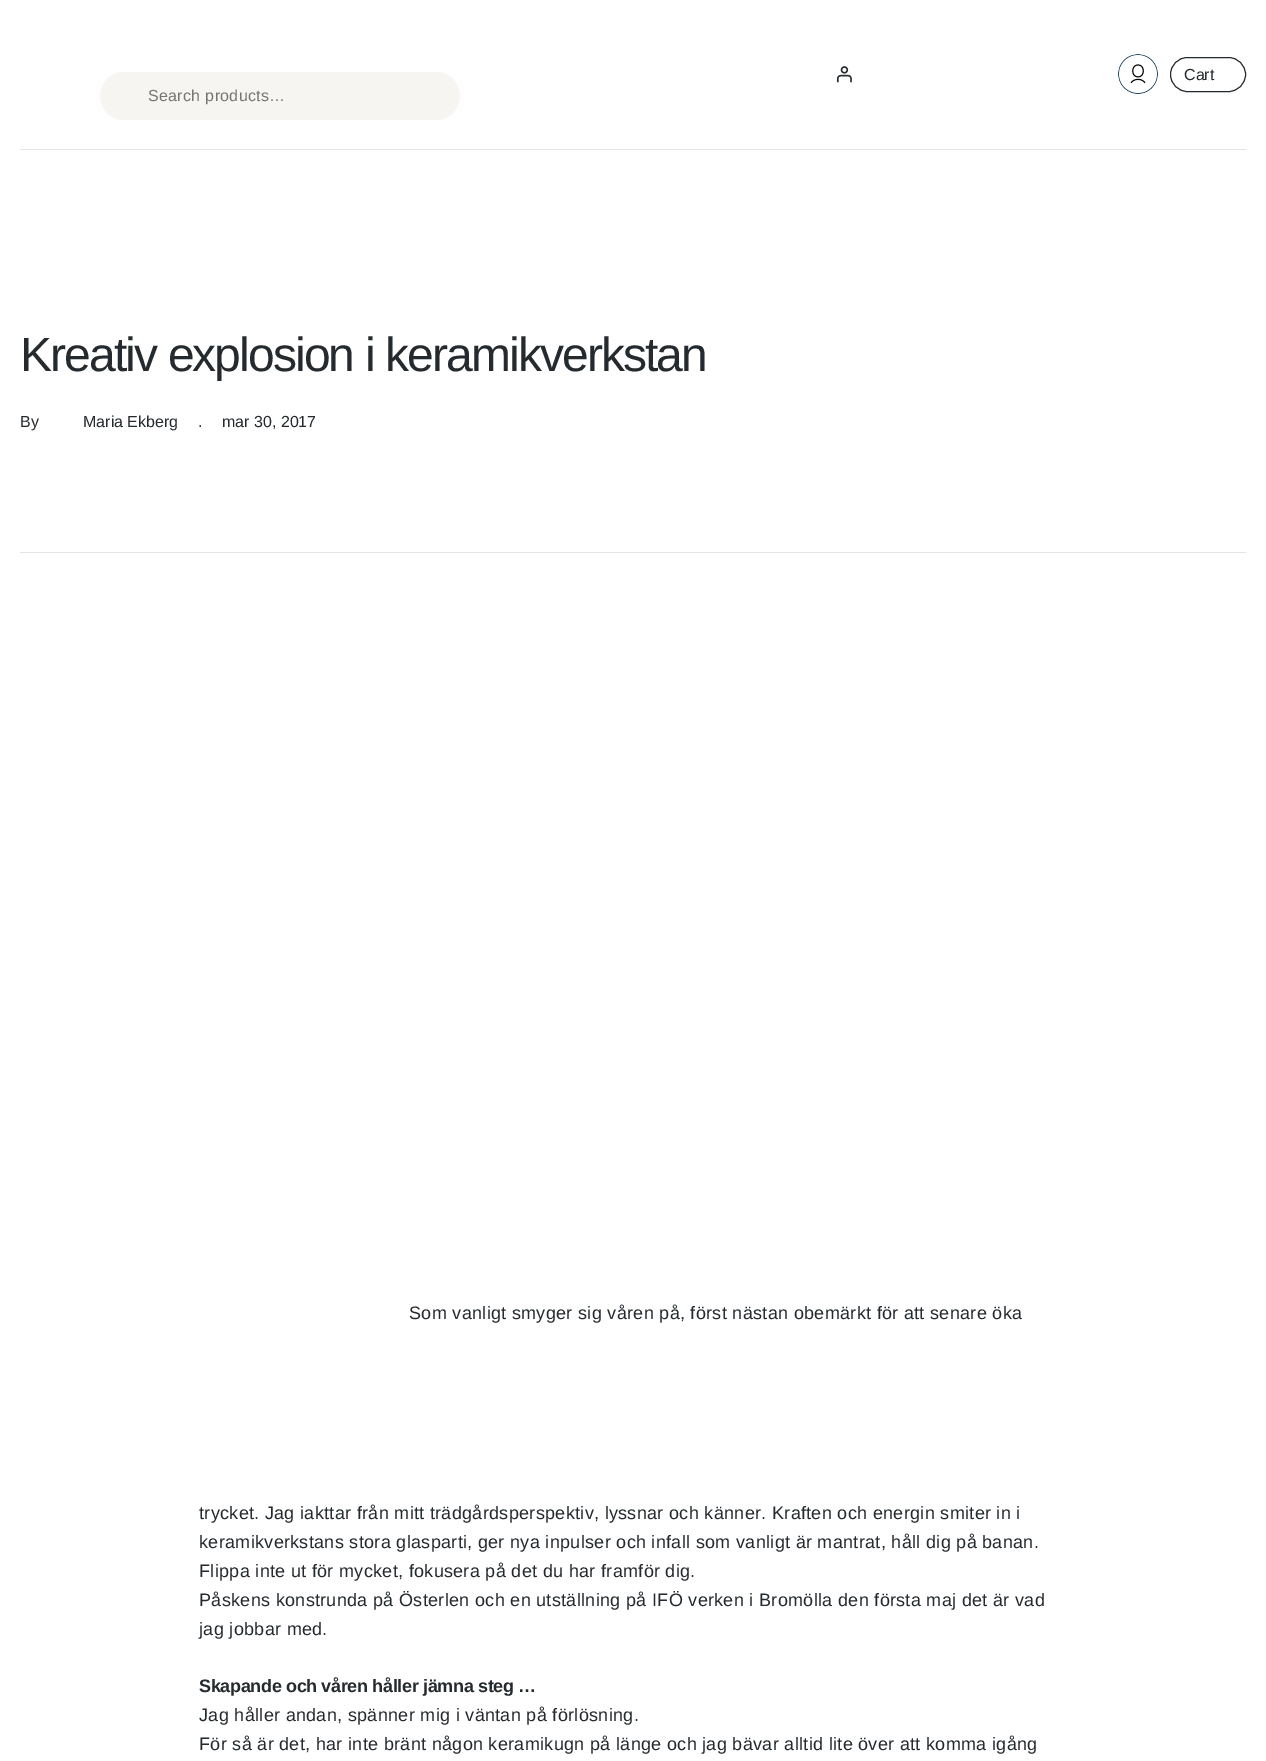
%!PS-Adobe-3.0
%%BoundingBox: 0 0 1266 1761
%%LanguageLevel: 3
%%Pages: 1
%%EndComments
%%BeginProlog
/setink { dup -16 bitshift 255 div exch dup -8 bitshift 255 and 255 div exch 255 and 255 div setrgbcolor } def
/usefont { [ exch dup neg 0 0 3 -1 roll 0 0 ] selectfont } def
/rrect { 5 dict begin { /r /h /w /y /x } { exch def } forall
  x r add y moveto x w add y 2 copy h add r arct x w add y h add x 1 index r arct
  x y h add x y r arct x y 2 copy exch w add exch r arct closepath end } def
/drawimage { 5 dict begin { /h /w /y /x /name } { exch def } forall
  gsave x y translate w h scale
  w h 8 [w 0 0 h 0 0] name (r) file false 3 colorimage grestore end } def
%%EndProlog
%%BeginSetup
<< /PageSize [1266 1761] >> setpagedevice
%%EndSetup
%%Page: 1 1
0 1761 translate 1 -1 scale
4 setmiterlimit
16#FFFFFF setink
0 0 1266 1761 rectfill
(img1.raw) 836 66 16 17 drawimage
(img2.raw) 1118 54 40 40 drawimage
16#242A2E setink
1170.5 57.5 75 34 17 rrect stroke
/LiberationSans-Regular 16 usefont
1184 80 moveto (Cart) show
16#F6F5F2 setink
100 72 360 48 24 rrect fill
16#757575 setink
148 101 moveto 0.32 0 (Search products…) ashow
16#E4E4E1 setink
20 149 1226 1 rectfill
/LiberationSans-Regular 48 usefont
16#242A2E setink
20 371 moveto -1.9 0 (Kreativ explosion i keramikverkstan) ashow
/LiberationSans-Regular 16 usefont
[
    [(By) 20 427]
    [(Maria Ekberg) 83 427]
    [(.) 198 427]
    [(mar 30, 2017) 222 427]
] { aload pop moveto show } forall
16#E4E4E1 setink
20 552 1226 1 rectfill
/LiberationSans-Regular 18 usefont
16#242A2E setink
409 1319 moveto 0.32 0 (Som vanligt smyger sig våren på, först nästan obemärkt för att senare öka) ashow
199 1519 moveto 0.32 0 (trycket. Jag iakttar från mitt trädgårdsperspektiv, lyssnar och känner. Kraften och energin smiter in i) ashow
199 1548 moveto 0.32 0 (keramikverkstans stora glasparti, ger nya inpulser och infall som vanligt är mantrat, håll dig på banan.) ashow
199 1577 moveto 0.32 0 (Flippa inte ut för mycket, fokusera på det du har framför dig.) ashow
199 1606 moveto 0.32 0 (Påskens konstrunda på Österlen och en utställning på IFÖ verken i Bromölla den första maj det är vad) ashow
199 1635 moveto 0.32 0 (jag jobbar med.) ashow
/LiberationSans-Bold 18 usefont
199 1692 moveto -0.35 0 (Skapande och våren håller jämna steg …) ashow
/LiberationSans-Regular 18 usefont
199 1721 moveto 0.32 0 (Jag håller andan, spänner mig i väntan på förlösning.) ashow
199 1750 moveto 0.32 0 (För så är det, har inte bränt någon keramikugn på länge och jag bävar alltid lite över att komma igång) ashow
showpage
%%EOF
